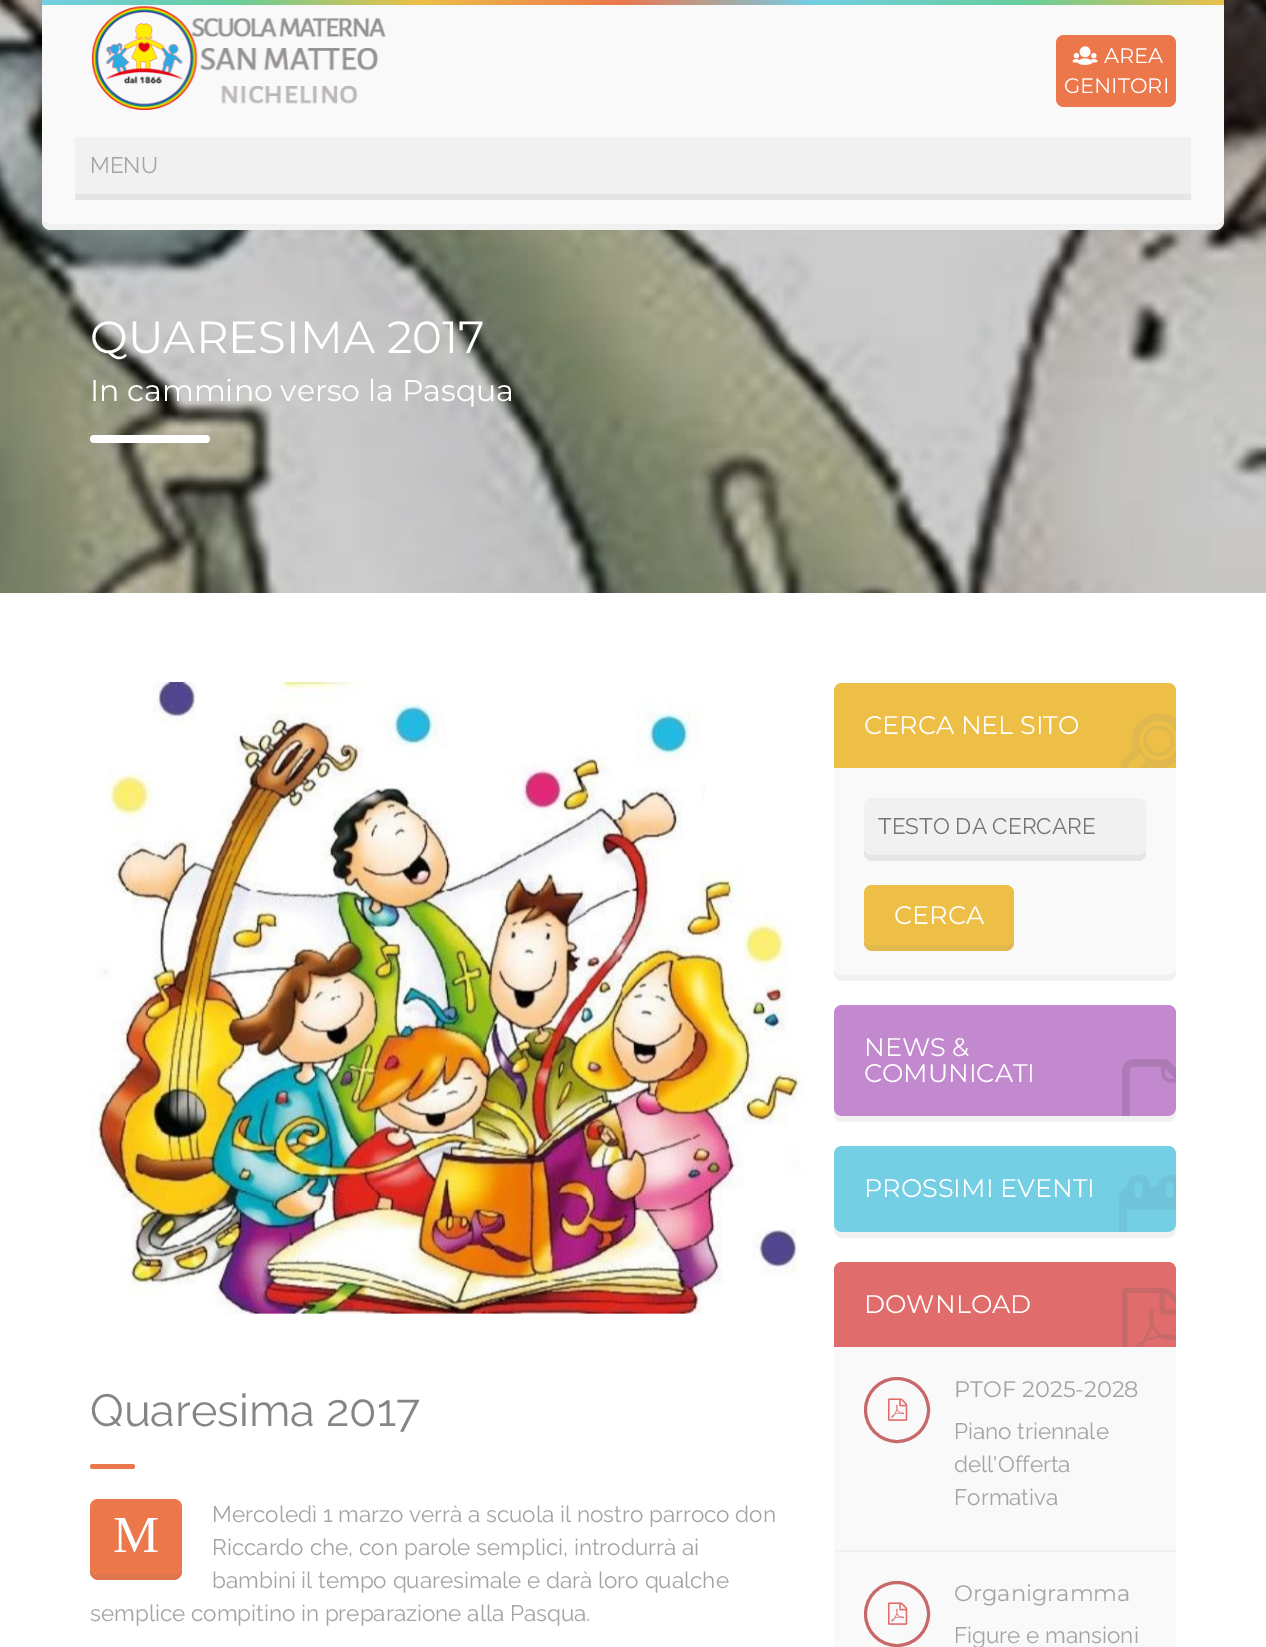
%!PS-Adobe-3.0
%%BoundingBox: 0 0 1266 1647
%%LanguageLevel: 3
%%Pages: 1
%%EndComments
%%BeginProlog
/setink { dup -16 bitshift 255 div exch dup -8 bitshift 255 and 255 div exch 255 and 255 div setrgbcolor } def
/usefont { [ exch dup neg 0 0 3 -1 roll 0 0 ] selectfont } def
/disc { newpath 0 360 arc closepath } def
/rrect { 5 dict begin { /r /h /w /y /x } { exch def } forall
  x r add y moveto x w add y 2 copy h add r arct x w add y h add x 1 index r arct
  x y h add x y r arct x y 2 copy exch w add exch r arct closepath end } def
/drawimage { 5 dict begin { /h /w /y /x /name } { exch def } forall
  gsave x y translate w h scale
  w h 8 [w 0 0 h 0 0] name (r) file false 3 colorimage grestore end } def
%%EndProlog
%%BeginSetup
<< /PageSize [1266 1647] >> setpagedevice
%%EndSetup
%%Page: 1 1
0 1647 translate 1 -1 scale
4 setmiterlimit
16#FFFFFF setink
0 0 1266 1647 rectfill
(img3.raw) 0 0 1266 593 drawimage
gsave 42 0 moveto 1224 0 lineto 1224 5 lineto 42 5 lineto closepath clip newpath
<< /ShadingType 2 /ColorSpace /DeviceRGB /Coords [42 2.3 1224 2.2] /Extend [true true] /Function << /FunctionType 3 /Domain [0 1] /Functions [<< /FunctionType 2 /Domain [0 1] /C0 [0.455 0.808 0.894] /C1 [0.4 0.808 0.612] /N 1 >> << /FunctionType 2 /Domain [0 1] /C0 [0.4 0.808 0.612] /C1 [0.929 0.749 0.278] /N 1 >> << /FunctionType 2 /Domain [0 1] /C0 [0.929 0.749 0.278] /C1 [0.925 0.467 0.294] /N 1 >> << /FunctionType 2 /Domain [0 1] /C0 [0.925 0.467 0.294] /C1 [0.455 0.808 0.894] /N 1 >> << /FunctionType 2 /Domain [0 1] /C0 [0.455 0.808 0.894] /C1 [0.4 0.808 0.612] /N 1 >> << /FunctionType 2 /Domain [0 1] /C0 [0.4 0.808 0.612] /C1 [0.929 0.749 0.278] /N 1 >>] /Bounds [0.16 0.32 0.49 0.65 0.83] /Encode [0 1 0 1 0 1 0 1 0 1 0 1] >> >> shfill grestore
16#F1F1F1 setink
42 216 moveto 42 222 lineto 42 226 46 230 50 230 curveto 1216 230 lineto 1220 230 1224 226 1224 222 curveto 1224 216 lineto 1224 220 1221 224 1216 224 curveto 50 224 lineto 45 224 42 220 42 216 curveto closepath fill
16#F9F9F9 setink
42 5 moveto 1224 5 lineto 1224 216 lineto 1224 220.5 1220.5 224 1216 224 curveto 50 224 lineto 45.5 224 42 220.5 42 216 curveto closepath fill
(img1.raw) 91 6 295 104 drawimage
16#EC774B setink
1056 35 120 72 8 rrect fill
(img2.raw) 1072 46 26 19 drawimage
/Montserrat-Regular 21 usefont
16#FFFFFF setink
1104 63 moveto (AREA) show
1064 93 moveto (GENITORI) show
16#E5E5E5 setink
75 194 1116 6 rectfill
16#F1F1F1 setink
75 137 1116 57 rectfill
/Raleway-Thin 22.5 usefont
16#A4A4A4 setink
90 173 moveto (MENU) show
/Montserrat-Regular 45 usefont
16#FFFFFF setink
90 353 moveto (QUARESIMA 2017) show
/Montserrat-Regular 30 usefont
90 401 moveto (In cammino verso la Pasqua) show
90 435 120 8 4 rrect fill
(img4.raw) 90 682 714 632 drawimage
/Raleway-Thin 45 usefont
16#868585 setink
90 1426 moveto (Quaresima 2017) show
16#EC774B setink
90 1464 45 5 2.5 rrect fill
/Raleway-Thin 22.5 usefont
16#A4A4A4 setink
[
    [(Mercoledì 1 marzo verrà a scuola il nostro parroco don) 212 1522]
    [(Riccardo che, con parole semplici, introdurrà ai) 212 1555]
    [(bambini il tempo quaresimale e darà loro qualche) 212 1588]
    [(semplice compitino in preparazione alla Pasqua.) 90 1621]
] { aload pop moveto show } forall
16#DF764E setink
90 1566 moveto 90 1572 lineto 90 1576 94 1580 98 1580 curveto 174 1580 lineto 178 1580 182 1576 182 1572 curveto 182 1513 lineto 182 1510 lineto 182 1566 lineto 182 1570 178 1574 174 1574 curveto 98 1574 lineto 93 1574 90 1570 90 1566 curveto closepath fill
16#EC774B setink
90 1499 92 75 8 rrect fill
/LiberationSerif-Regular 52 usefont
16#FFFFFF setink
113 1552 moveto (M) show
16#F1F1F1 setink
834 968 moveto 834 973 lineto 834 977 838 981 842 981 curveto 1168 981 lineto 1172 981 1176 977 1176 973 curveto 1176 968 lineto 1176 972 1173 975 1168 975 curveto 842 975 lineto 837 975 834 972 834 968 curveto closepath fill
16#F9F9F9 setink
834 683 342 292 8 rrect fill
16#EDBF47 setink
842 683 moveto 1168 683 lineto 1172.5 683 1176 686.5 1176 691 curveto 1176 768 lineto 834 768 lineto 834 691 lineto 834 686.5 837.5 683 842 683 curveto closepath fill
/Montserrat-Regular 25.5 usefont
16#FFFFFF setink
864 734 moveto (CERCA NEL SITO) show
(img5.raw) 1120 713 56 55 drawimage
16#E5E5E5 setink
864 848 moveto 864 853 lineto 864 857 868 861 872 861 curveto 1138 861 lineto 1142 861 1146 857 1146 853 curveto 1146 848 lineto 1146 852 1143 855 1138 855 curveto 872 855 lineto 867 855 864 852 864 848 curveto closepath fill
16#F1F1F1 setink
864 798 282 57 8 rrect fill
/Raleway-Thin 22.5 usefont
16#757575 setink
878 834 moveto (TESTO DA CERCARE) show
16#E0B84E setink
864 938 moveto 864 943 lineto 864 947 868 951 872 951 curveto 1006 951 lineto 1010 951 1014 947 1014 943 curveto 1014 938 lineto 1014 942 1011 945 1006 945 curveto 872 945 lineto 867 945 864 942 864 938 curveto closepath fill
16#EDBF47 setink
864 885 150 60 8 rrect fill
/Montserrat-Regular 25.5 usefont
16#FFFFFF setink
894 924 moveto (CERCA) show
16#F1F1F1 setink
834 1108 moveto 834 1114 lineto 834 1118 838 1122 842 1122 curveto 1168 1122 lineto 1172 1122 1176 1118 1176 1114 curveto 1176 1108 lineto 1176 1113 1173 1116 1168 1116 curveto 842 1116 lineto 837 1116 834 1113 834 1108 curveto closepath fill
16#C389CE setink
834 1005 342 111 8 rrect fill
16#FFFFFF setink
864 1056 moveto (NEWS &) show
864 1082 moveto (COMUNICATI) show
(img6.raw) 1122 1059 54 57 drawimage
16#F1F1F1 setink
834 1224 moveto 834 1230 lineto 834 1234 838 1238 842 1238 curveto 1168 1238 lineto 1172 1238 1176 1234 1176 1230 curveto 1176 1224 lineto 1176 1228 1173 1232 1168 1232 curveto 842 1232 lineto 837 1232 834 1228 834 1224 curveto closepath fill
16#74CEE4 setink
834 1146 342 86 8 rrect fill
16#FFFFFF setink
864 1197 moveto (PROSSIMI EVENTI) show
(img7.raw) 1119 1174 57 58 drawimage
16#F9F9F9 setink
834 1262 342 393 8 rrect fill
16#E16C6C setink
842 1262 moveto 1168 1262 lineto 1172.5 1262 1176 1265.5 1176 1270 curveto 1176 1347 lineto 834 1347 lineto 834 1270 lineto 834 1265.5 837.5 1262 842 1262 curveto closepath fill
16#FFFFFF setink
864 1313 moveto (DOWNLOAD) show
(img8.raw) 1122 1287 54 60 drawimage
16#F1F1F1 setink
834 1550 342 2 rectfill
16#C86969 setink
3 setlinewidth
897 1410 31.5 disc stroke
(img9.raw) 888 1398 20 23 drawimage
/Montserrat-Regular 22.5 usefont
16#A4A4A4 setink
954 1397 moveto (PTOF 2025-2028) show
/Raleway-Thin 22.5 usefont
[
    [(Piano triennale) 954 1439]
    [(dell'Offerta) 954 1472]
    [(Formativa) 954 1505]
] { aload pop moveto show } forall
16#C86969 setink
897 1614 31.5 disc stroke
(img9.raw) 888 1602 20 23 drawimage
/Montserrat-Regular 22.5 usefont
16#A4A4A4 setink
954 1601 moveto (Organigramma) show
/Raleway-Thin 22.5 usefont
954 1643 moveto (Figure e mansioni) show
showpage
%%EOF
